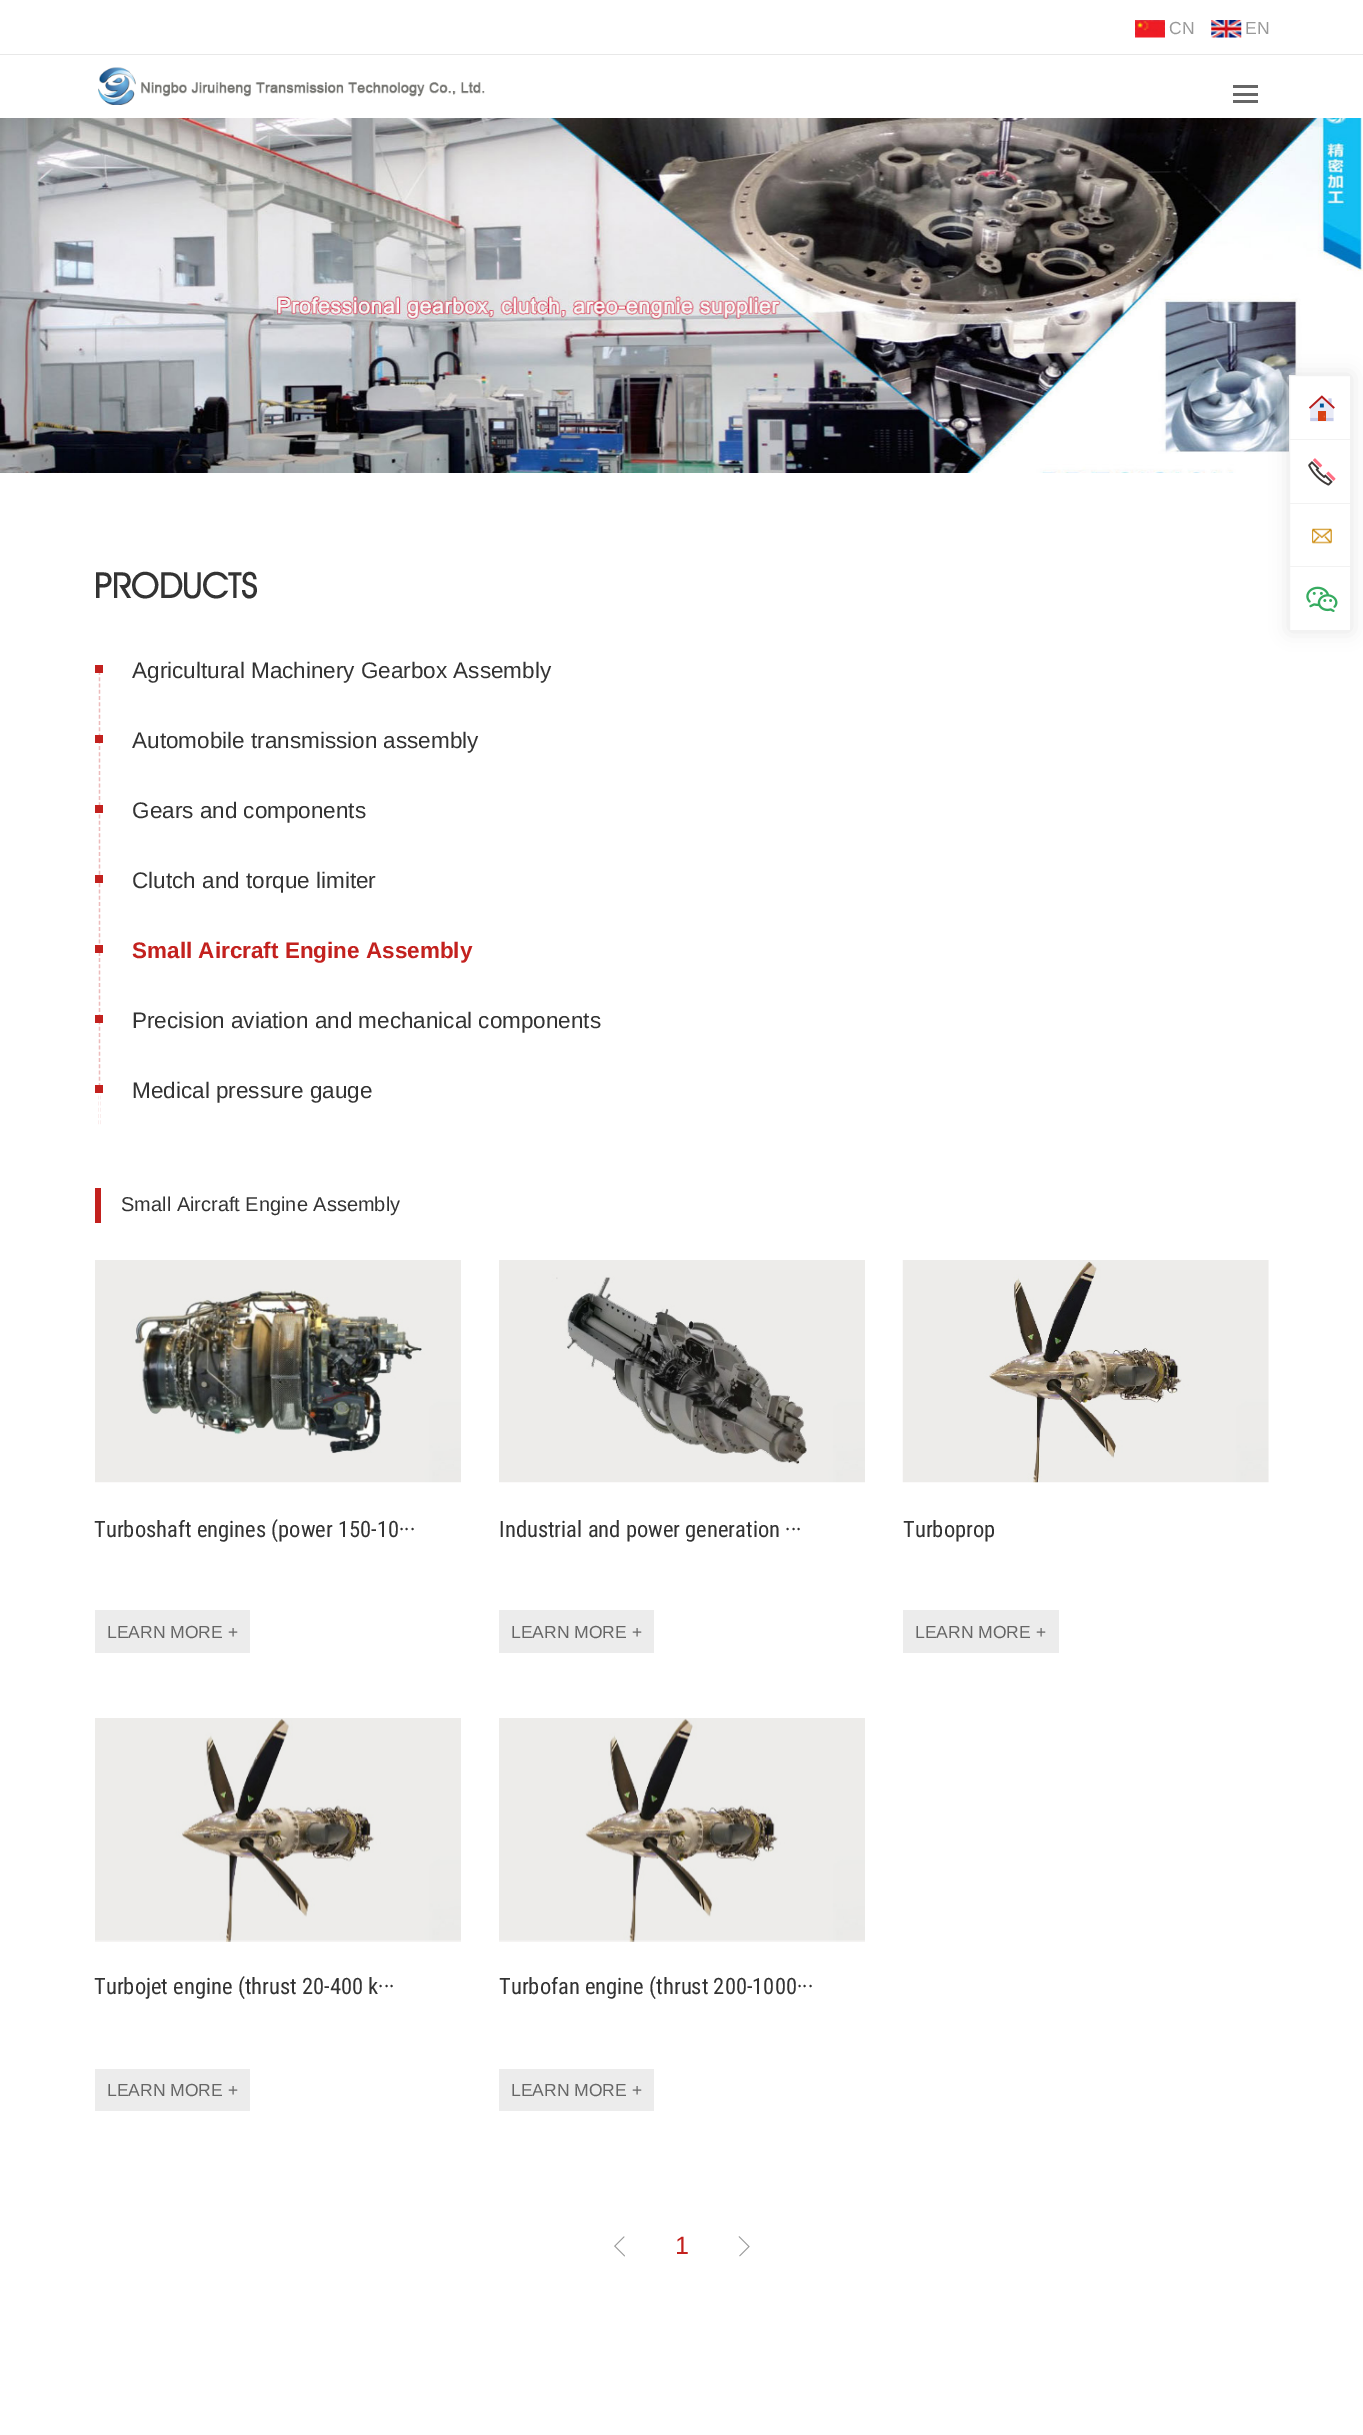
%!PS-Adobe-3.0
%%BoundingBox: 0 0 1363 2435
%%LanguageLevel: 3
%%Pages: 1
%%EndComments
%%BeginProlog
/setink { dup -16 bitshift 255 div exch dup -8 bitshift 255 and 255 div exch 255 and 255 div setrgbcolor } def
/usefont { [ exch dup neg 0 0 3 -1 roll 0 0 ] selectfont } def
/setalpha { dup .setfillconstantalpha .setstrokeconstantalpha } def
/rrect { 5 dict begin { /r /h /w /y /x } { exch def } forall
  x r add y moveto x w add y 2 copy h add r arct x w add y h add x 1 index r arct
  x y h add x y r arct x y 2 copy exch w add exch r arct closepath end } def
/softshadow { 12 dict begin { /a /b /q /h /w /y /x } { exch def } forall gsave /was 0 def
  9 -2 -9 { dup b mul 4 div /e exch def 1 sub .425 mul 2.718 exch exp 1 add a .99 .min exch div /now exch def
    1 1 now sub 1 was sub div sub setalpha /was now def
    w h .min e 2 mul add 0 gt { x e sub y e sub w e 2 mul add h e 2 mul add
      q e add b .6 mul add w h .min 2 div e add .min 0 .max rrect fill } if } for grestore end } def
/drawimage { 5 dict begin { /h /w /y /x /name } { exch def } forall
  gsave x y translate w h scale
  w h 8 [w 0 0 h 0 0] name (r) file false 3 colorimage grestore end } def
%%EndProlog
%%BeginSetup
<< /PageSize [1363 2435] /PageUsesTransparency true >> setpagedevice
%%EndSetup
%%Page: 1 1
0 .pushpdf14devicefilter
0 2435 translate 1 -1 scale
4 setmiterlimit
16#FFFFFF setink
0 0 1363 2435 rectfill
16#E8E8E8 setink
0 54 1363 1 rectfill
(img1.raw) 1135 20 30 18 drawimage
/LiberationSans-Regular 17.5 usefont
16#999999 setink
1169 34 moveto (CN) show
(img2.raw) 1211 20 31 18 drawimage
1245 34 moveto (EN) show
(img3.raw) 98 67 387 38 drawimage
[
    [1233 85 25 3 16#666666]
    [1233 93 25 3 16#666666]
    [1233 100 25 3 16#666666]
] { aload pop setink rectfill } forall
(img4.raw) 0 118 1363 355 drawimage
16#E4E4E4 setink
1289 375 62 256 0 9.5 1 softshadow
16#FFFFFF setink
1289.5 375.5 moveto 1350.5 375.5 lineto 1350.5 630.5 lineto 1289.5 630.5 lineto closepath gsave fill grestore
16#F2F2F2 setink
stroke
1290 439 60 1 rectfill
(img5.raw) 1309 395 26 27 drawimage
1290 503 60 1 rectfill
(img6.raw) 1308 458 28 28 drawimage
1290 566 60 1 rectfill
(img7.raw) 1312 528 20 16 drawimage
(img8.raw) 1306 586 32 26 drawimage
/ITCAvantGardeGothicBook-Bold 35 usefont
16#333333 setink
94 598 moveto (PRODUCTS) show
gsave
95 635 1175 490 rectclip
16#EDBCBC setink
1.2 setlinewidth
[3.75 2.49] 0 setdash
99.5 665 moveto 99.5 1155 lineto stroke
grestore
16#C3211E setink
95 665 8 8 rectfill
/LiberationSans-Regular 22.5 usefont
16#333333 setink
132 678 moveto (Agricultural Machinery Gearbox Assembly) show
16#C3211E setink
95 735 8 8 rectfill
16#333333 setink
132 748 moveto (Automobile transmission assembly) show
16#C3211E setink
95 805 8 8 rectfill
16#333333 setink
132 818 moveto (Gears and components) show
16#C3211E setink
95 875 8 8 rectfill
16#333333 setink
132 888 moveto (Clutch and torque limiter) show
16#C3211E setink
95 945 8 8 rectfill
/LiberationSans-Bold 22.5 usefont
132 958 moveto (Small Aircraft Engine Assembly) show
95 1015 8 8 rectfill
/LiberationSans-Regular 22.5 usefont
16#333333 setink
132 1028 moveto (Precision aviation and mechanical components) show
16#FFFFFF setink
99 1093 1 32 rectfill
16#C3211E setink
95 1085 8 8 rectfill
16#333333 setink
132 1098 moveto (Medical pressure gauge) show
16#C3211E setink
95 1188 6 35 rectfill
/LiberationSans-Regular 20 usefont
16#333333 setink
121 1211 moveto (Small Aircraft Engine Assembly) show
(img9.raw) 95 1260 366 223 drawimage
/RobotoCondensed-Regular 22.5 usefont
94 1537 moveto (Turboshaft engines \(power 150-10···) show
16#ECECEC setink
95 1610 155 43 rectfill
/LiberationSans-Regular 17.5 usefont
16#666666 setink
107 1638 moveto (LEARN MORE +) show
(img10.raw) 499 1260 366 223 drawimage
/RobotoCondensed-Regular 22.5 usefont
16#333333 setink
499 1537 moveto (Industrial and power generation ···) show
16#ECECEC setink
499 1610 155 43 rectfill
/LiberationSans-Regular 17.5 usefont
16#666666 setink
511 1638 moveto (LEARN MORE +) show
(img11.raw) 902 1260 367 223 drawimage
/RobotoCondensed-Regular 22.5 usefont
16#333333 setink
903 1537 moveto (Turboprop) show
16#ECECEC setink
903 1610 156 43 rectfill
/LiberationSans-Regular 17.5 usefont
16#666666 setink
915 1638 moveto (LEARN MORE +) show
(img12.raw) 95 1718 366 224 drawimage
/RobotoCondensed-Regular 22.5 usefont
16#333333 setink
94 1994 moveto (Turbojet engine \(thrust 20-400 k···) show
16#ECECEC setink
95 2069 155 42 rectfill
/LiberationSans-Regular 17.5 usefont
16#666666 setink
107 2096 moveto (LEARN MORE +) show
(img13.raw) 499 1718 366 224 drawimage
/RobotoCondensed-Regular 22.5 usefont
16#333333 setink
499 1994 moveto (Turbofan engine \(thrust 200-1000···) show
16#ECECEC setink
499 2069 155 42 rectfill
/LiberationSans-Regular 17.5 usefont
16#666666 setink
511 2096 moveto (LEARN MORE +) show
(img14.raw) 614 2236 11 21 drawimage
/LiberationSans-Regular 25 usefont
16#C3211E setink
675 2254 moveto (1) show
(img15.raw) 738 2236 12 21 drawimage
.poppdf14devicefilter showpage
%%EOF
